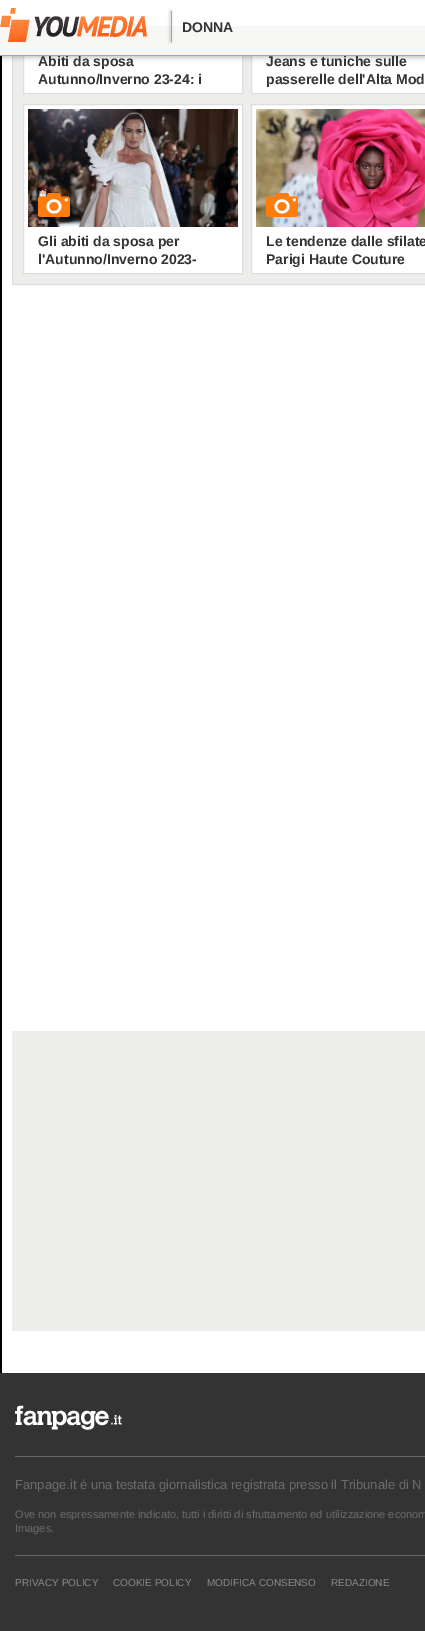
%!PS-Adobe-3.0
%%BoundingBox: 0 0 425 1631
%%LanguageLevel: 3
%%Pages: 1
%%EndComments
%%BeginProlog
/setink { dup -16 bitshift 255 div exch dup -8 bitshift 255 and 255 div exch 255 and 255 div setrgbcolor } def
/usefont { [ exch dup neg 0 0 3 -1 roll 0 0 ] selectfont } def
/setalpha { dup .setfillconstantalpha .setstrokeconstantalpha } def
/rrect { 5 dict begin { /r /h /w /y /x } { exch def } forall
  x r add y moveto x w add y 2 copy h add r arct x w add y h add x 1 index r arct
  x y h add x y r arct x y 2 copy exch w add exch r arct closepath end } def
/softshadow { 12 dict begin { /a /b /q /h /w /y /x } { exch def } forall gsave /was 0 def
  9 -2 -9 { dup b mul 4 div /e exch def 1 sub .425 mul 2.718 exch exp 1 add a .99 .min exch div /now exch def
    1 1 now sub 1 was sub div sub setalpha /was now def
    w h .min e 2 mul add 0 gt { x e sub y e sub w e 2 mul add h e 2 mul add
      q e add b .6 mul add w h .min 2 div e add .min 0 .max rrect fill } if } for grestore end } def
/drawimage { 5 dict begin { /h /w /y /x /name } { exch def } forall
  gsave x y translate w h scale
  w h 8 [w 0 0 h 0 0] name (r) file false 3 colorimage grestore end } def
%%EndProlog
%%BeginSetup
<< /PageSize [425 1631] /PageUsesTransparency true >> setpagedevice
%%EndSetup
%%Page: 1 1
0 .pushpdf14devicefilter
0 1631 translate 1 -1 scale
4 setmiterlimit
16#000000 setink
0 0 425 1631 rectfill
16#FFFFFF setink
2 56 423 1317 rectfill
16#EDEDEB setink
13 56 412 228 rectfill
16#DEDEDE setink
12.5 -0.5 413 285 rectstroke
16#FFFFFF setink
24 56 218 37 rectfill
16#DEDEDE setink
23.5 -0.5 219 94 rectstroke
16#FFFFFF setink
252 56 173 37 rectfill
16#DEDEDE setink
251.5 -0.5 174 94 rectstroke
16#000000 setink
0 1 425 56 0 3 0.3 softshadow
16#FFFFFF setink
0 0 425 26 rectfill
16#F7F7F5 setink
0 26 425 29 rectfill
/LiberationSans-Bold 14 usefont
16#333333 setink
38 66 moveto (Abiti da sposa) show
266 66 moveto (Jeans e tuniche sulle) show
16#FE8D45 setink
0 55 425 1 rectfill
(img1.raw) 0 8 147 34 drawimage
16#000000 setink
170 11 1 31 0 1.5 0.2 softshadow
16#FE8D45 setink
171 11 1 31 rectfill
16#333333 setink
182 32 moveto (DONNA) show
38 84 moveto (Autunno/Inverno 23-24: i) show
16#FFFFFF setink
23.5 104.5 moveto 242.5 104.5 lineto 242.5 273.5 lineto 23.5 273.5 lineto closepath gsave fill grestore
16#DEDEDE setink
stroke
(img2.raw) 28 109 210 118 drawimage
(img3.raw) 38 193 32 24 drawimage
16#333333 setink
[
    [(Gli abiti da sposa per) 38 246]
    [(l'Autunno/Inverno 2023-) 38 264]
    [(passerelle dell'Alta Mod) 266 84]
] { aload pop moveto show } forall
16#FFFFFF setink
251.5 104.5 moveto 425.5 104.5 lineto 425.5 273.5 lineto 251.5 273.5 lineto closepath gsave fill grestore
16#DEDEDE setink
stroke
(img4.raw) 256 109 169 118 drawimage
(img5.raw) 266 193 32 24 drawimage
16#333333 setink
266 246 moveto (Le tendenze dalle sfilate) show
266 264 moveto (Parigi Haute Couture) show
16#EDEDEB setink
12 1031 413 300 rectfill
16#333333 setink
0 1373 425 258 rectfill
(img6.raw) 15 1405 107 25 drawimage
16#666666 setink
15 1456 410 1 rectfill
/LiberationSans-Regular 13 usefont
16#6B6B6B setink
15 1489 moveto (Fanpage.it è una testata giornalistica registrata presso il Tribunale di N) show
/LiberationSans-Regular 11 usefont
15 1518 moveto (Ove non espressamente indicato, tutti i diritti di sfruttamento ed utilizzazione econom) show
15 1532 moveto (Images.) show
16#666666 setink
15 1555 410 1 rectfill
/LiberationSans-Regular 10 usefont
16#888888 setink
[
    [(PRIVACY POLICY) 15 1586]
    [(COOKIE POLICY) 113 1586]
    [(MODIFICA CONSENSO) 207 1586]
    [(REDAZIONE) 331 1586]
] { aload pop moveto show } forall
.poppdf14devicefilter showpage
%%EOF
